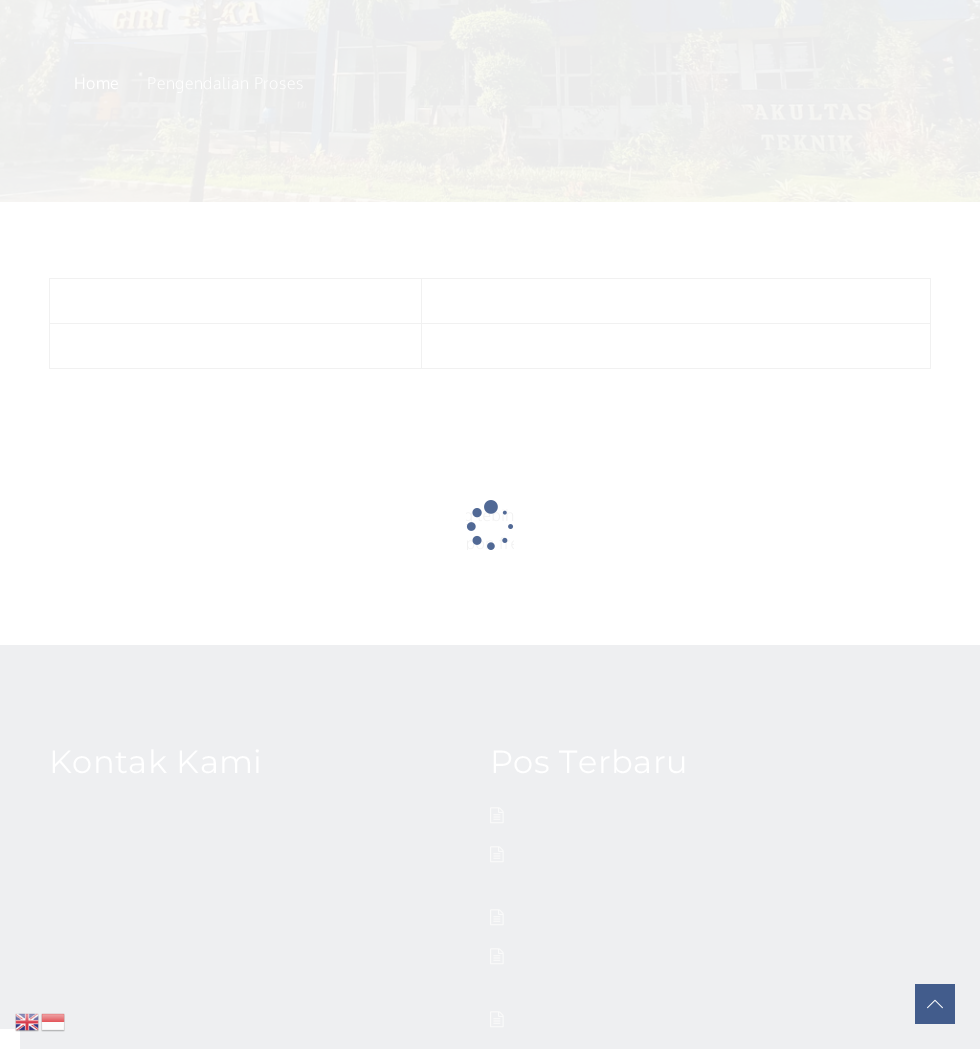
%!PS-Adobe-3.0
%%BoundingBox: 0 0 980 1049
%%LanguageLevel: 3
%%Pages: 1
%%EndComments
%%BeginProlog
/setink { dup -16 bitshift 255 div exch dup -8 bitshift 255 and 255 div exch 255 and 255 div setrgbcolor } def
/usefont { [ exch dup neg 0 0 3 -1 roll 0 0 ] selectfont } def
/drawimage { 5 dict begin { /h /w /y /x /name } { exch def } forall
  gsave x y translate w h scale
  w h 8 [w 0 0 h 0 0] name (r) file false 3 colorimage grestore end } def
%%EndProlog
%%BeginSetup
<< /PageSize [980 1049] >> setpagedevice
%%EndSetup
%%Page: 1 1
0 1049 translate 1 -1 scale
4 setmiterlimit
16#FFFFFF setink
0 0 980 1049 rectfill
(img1.raw) 0 0 980 202 drawimage
16#F0F2F6 setink
74 42 63 2 rectfill
/Oxygen-Regular 16 usefont
16#FFFFFF setink
74 89 moveto 0.5 0 (Home) ashow
/Oxygen-Light 16 usefont
147 89 moveto 0.5 0 (Pengendalian Proses) ashow
[
    [421 278 510 1 16#F1F1F1]
    [421 323 510 1 16#F1F1F1]
    [930 323 1 46 16#F1F1F1]
    [421 368 510 1 16#F1F1F1]
    [421 323 1 46 16#F1F1F1]
    [49 323 373 1 16#F1F1F1]
    [421 278 1 46 16#F1F1F1]
    [49 278 373 1 16#F1F1F1]
    [49 368 373 1 16#F1F1F1]
    [49 323 1 46 16#F1F1F1]
    [49 278 1 46 16#F1F1F1]
    [930 278 1 46 16#F1F1F1]
] { aload pop setink rectfill } forall
(img2.raw) 466 500 48 50 drawimage
16#EEEFF1 setink
0 645 980 404 rectfill
/Montserrat-Regular 32 usefont
16#FFFFFF setink
49 773 moveto 0.5 0 (Kontak Kami) ashow
490 773 moveto 0.5 0 (Pos Terbaru) ashow
(img3.raw) 490 807 14 17 drawimage
(img3.raw) 490 846 14 17 drawimage
(img3.raw) 490 909 14 17 drawimage
(img3.raw) 490 948 14 17 drawimage
(img3.raw) 490 1011 14 17 drawimage
16#425C8C setink
915 984 40 40 rectfill
(img4.raw) 927 999 16 10 drawimage
16#FFFFFF setink
0 1029 20 20 rectfill
(img5.raw) 15 1013 24 19 drawimage
(img6.raw) 41 1013 24 19 drawimage
showpage
%%EOF
